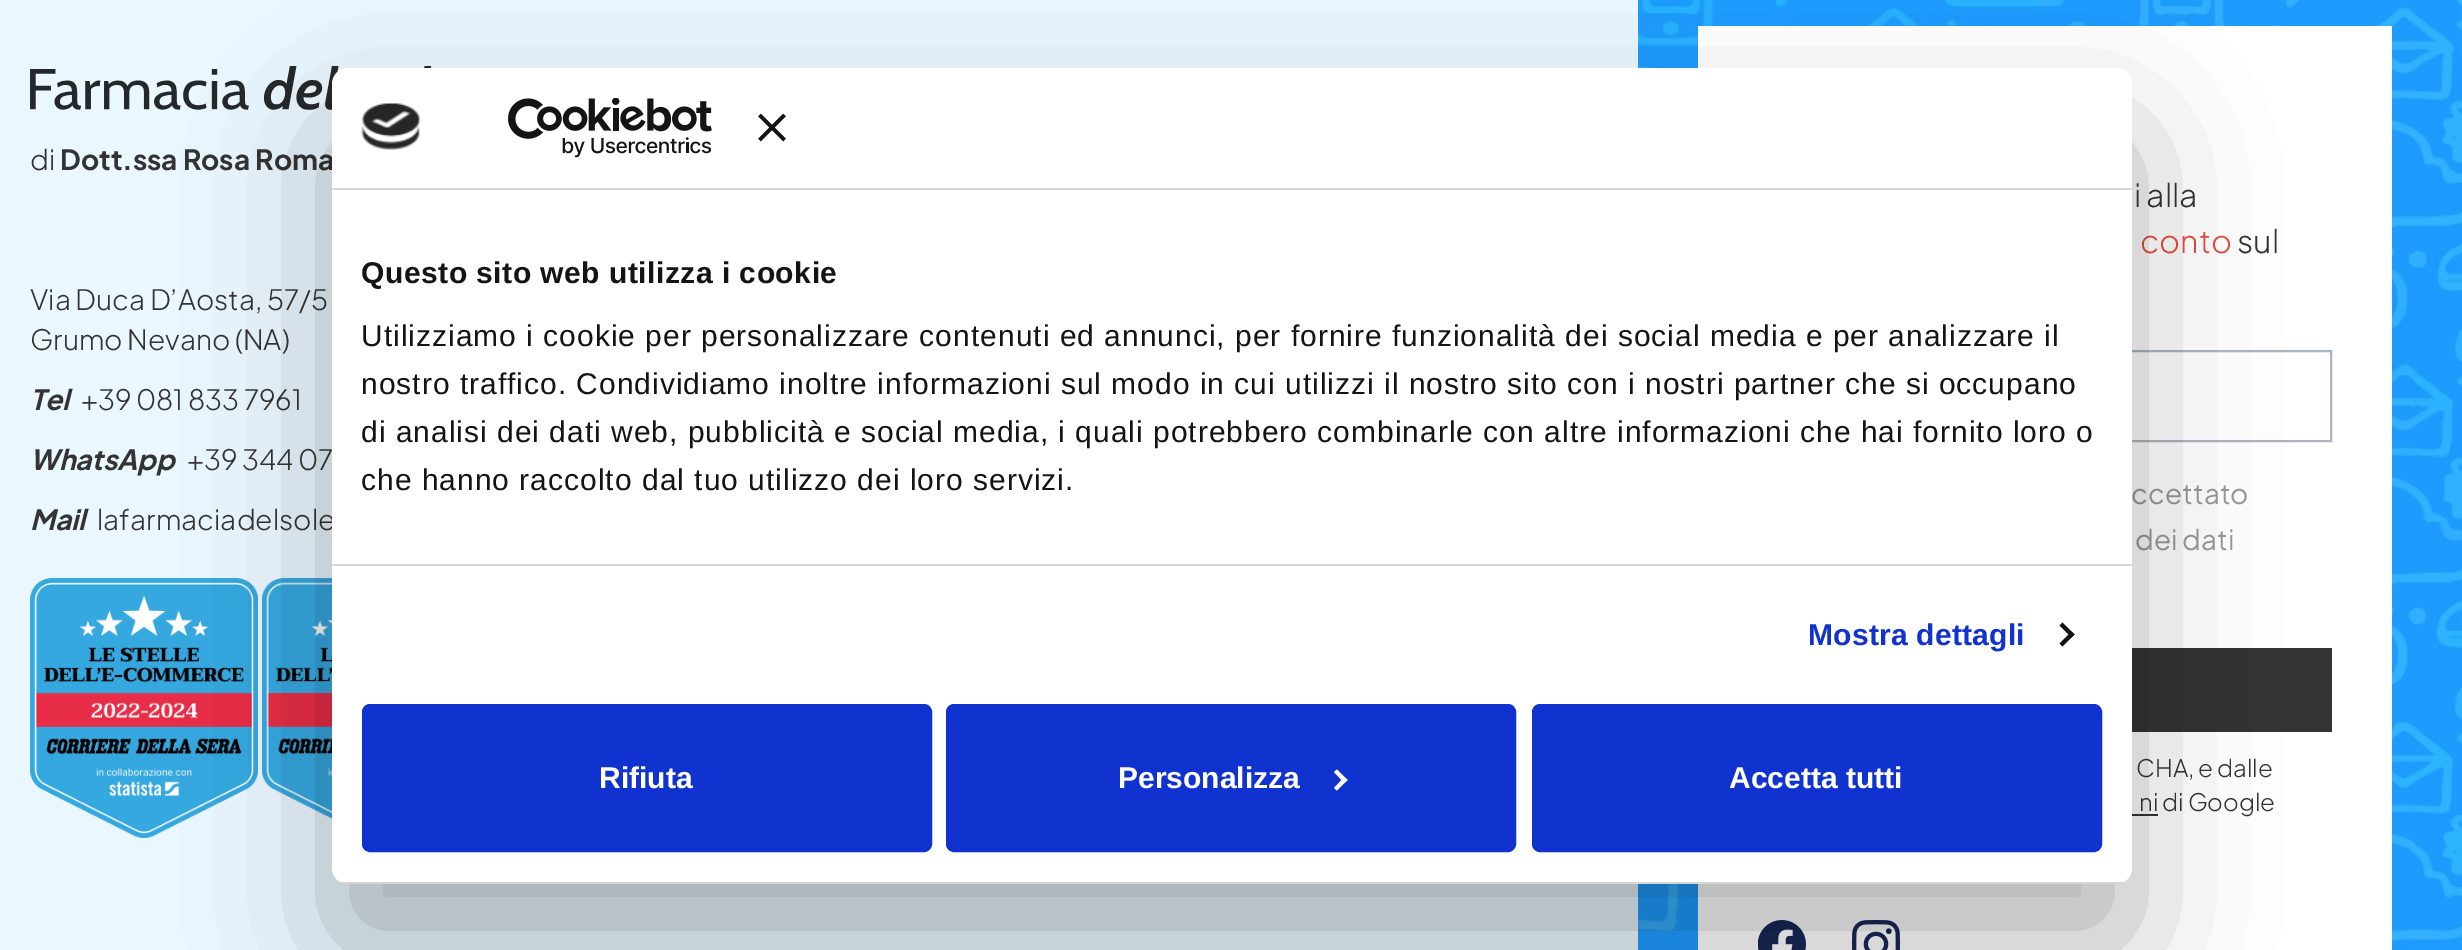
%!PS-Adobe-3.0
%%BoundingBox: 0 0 2462 950
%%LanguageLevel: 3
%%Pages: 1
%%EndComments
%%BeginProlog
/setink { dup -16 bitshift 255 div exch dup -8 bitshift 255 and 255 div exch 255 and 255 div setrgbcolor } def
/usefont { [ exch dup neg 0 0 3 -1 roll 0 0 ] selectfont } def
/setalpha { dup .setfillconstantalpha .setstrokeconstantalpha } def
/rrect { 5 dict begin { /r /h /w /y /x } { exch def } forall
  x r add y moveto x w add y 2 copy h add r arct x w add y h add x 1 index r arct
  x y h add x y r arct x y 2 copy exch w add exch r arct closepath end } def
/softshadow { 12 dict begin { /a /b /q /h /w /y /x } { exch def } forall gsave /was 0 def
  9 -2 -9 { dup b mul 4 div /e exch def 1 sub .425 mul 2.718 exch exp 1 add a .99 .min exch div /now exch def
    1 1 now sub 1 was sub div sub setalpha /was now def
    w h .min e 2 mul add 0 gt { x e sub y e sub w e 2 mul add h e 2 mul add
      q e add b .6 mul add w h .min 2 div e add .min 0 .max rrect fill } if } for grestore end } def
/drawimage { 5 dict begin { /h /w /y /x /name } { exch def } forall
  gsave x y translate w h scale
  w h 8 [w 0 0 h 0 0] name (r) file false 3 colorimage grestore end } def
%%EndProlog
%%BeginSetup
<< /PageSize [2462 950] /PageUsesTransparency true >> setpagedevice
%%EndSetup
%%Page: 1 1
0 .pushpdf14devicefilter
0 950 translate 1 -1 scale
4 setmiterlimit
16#FFFFFF setink
0 0 2462 950 rectfill
(img1.raw) 0 0 2462 950 drawimage
16#EBF7FF setink
472 0 1166 950 rectfill
(img2.raw) 30 66 402 44 drawimage
/PlusJakartaSans-Light 28 usefont
16#333333 setink
30 170 moveto (di) show
/PlusJakartaSans-Bold 28 usefont
60 170 moveto (Dott.ssa Rosa Roma) show
/PlusJakartaSans-Light 28 usefont
30 310 moveto (Via Duca D’Aosta, 57/5) show
30 350 moveto (Grumo Nevano \(NA\)) show
/PlusJakartaSans-BoldItalic 28 usefont
30 410 moveto (Tel) show
/PlusJakartaSans-Light 28 usefont
81 410 moveto (+39 081 833 7961) show
/PlusJakartaSans-BoldItalic 28 usefont
30 470 moveto (WhatsApp) show
/PlusJakartaSans-Light 28 usefont
187 470 moveto (+39 344 07) show
/PlusJakartaSans-BoldItalic 28 usefont
30 530 moveto (Mail) show
/PlusJakartaSans-Light 28 usefont
97 530 moveto (lafarmaciadelsole) show
(img3.raw) 30 578 228 260 drawimage
(img4.raw) 262 578 70 241 drawimage
16#FFFFFF setink
1698 26 694 924 rectfill
/PlusJakartaSans-Light 32 usefont
16#333333 setink
2134 207 moveto (i alla) show
16#E74C3C setink
2140 253 moveto (conto) show
16#333333 setink
2237 253 moveto (sul) show
16#ABB4C2 setink
2 setlinewidth
1759 351 572 90 rectstroke
/PlusJakartaSans-Regular 28 usefont
16#999999 setink
2131 504 moveto (ccettato) show
2135 550 moveto (dei dati) show
16#333333 setink
2132 648 200 84 rectfill
/PlusJakartaSans-Light 24 usefont
2136 777 moveto (CHA, e dalle) show
2132 814 26 2 rectfill
2139 811 moveto (ni di Google) show
(img5.raw) 1758 920 48 30 drawimage
(img6.raw) 1852 920 48 30 drawimage
16#000000 setink
332 132 1800 816 16 68 0.3 softshadow
16#FFFFFF setink
332 68 1800 816 16 rrect fill
16#D6D6D6 setink
332 188 1800 2 rectfill
(img7.raw) 361 103 60 47 drawimage
(img8.raw) 508 98 204 60 drawimage
(img9.raw) 758 114 28 28 drawimage
332 564 1800 2 rectfill
/LiberationSans-Bold 30 usefont
16#141414 setink
361 283 moveto 0.5 0 (Questo sito web utilizza i cookie) ashow
/LiberationSans-Regular 30 usefont
361 346 moveto 1 0 (Utilizziamo i cookie per personalizzare contenuti ed annunci, per fornire funzionalità dei social media e per analizzare il) ashow
361 394 moveto 1 0 (nostro traffico. Condividiamo inoltre informazioni sul modo in cui utilizzi il nostro sito con i nostri partner che si occupano) ashow
361 442 moveto 1 0 (di analisi dei dati web, pubblicità e social media, i quali potrebbero combinarle con altre informazioni che hai fornito loro o) ashow
361 490 moveto 1 0 (che hanno raccolto dal tuo utilizzo dei loro servizi.) ashow
/LiberationSans-Bold 30 usefont
16#1032CF setink
1808 645 moveto 0.25 0 (Mostra dettagli) ashow
16#141414 setink
2062.5 622.5 moveto 2074.5 634.5 lineto 2071.5 637.5 lineto 2059.5 625.5 lineto closepath fill
2071.5 631.5 moveto 2074.5 634.5 lineto 2062.5 646.5 lineto 2059.5 643.5 lineto closepath fill
gsave
332 68 1800 816 16 rrect clip newpath
16#D6D6D6 setink
332 882 1800 2 rectfill
grestore
16#1032CF setink
364 706 566 144 6 rrect gsave fill grestore
4 setlinewidth
stroke
16#FFFFFF setink
599 788 moveto (Rifiuta) show
16#1032CF setink
948 706 566 144 6 rrect gsave fill grestore
stroke
16#FFFFFF setink
1118 788 moveto (Personalizza) show
1337 769.5 moveto 1347.5 780 lineto 1344.5 783 lineto 1334 772 lineto closepath fill
1344.5 777 moveto 1347.5 780 lineto 1337 790.5 lineto 1334 788 lineto closepath fill
16#1032CF setink
1534 706 566 144 6 rrect gsave fill grestore
stroke
16#FFFFFF setink
1729 788 moveto (Accetta tutti) show
.poppdf14devicefilter showpage
%%EOF
